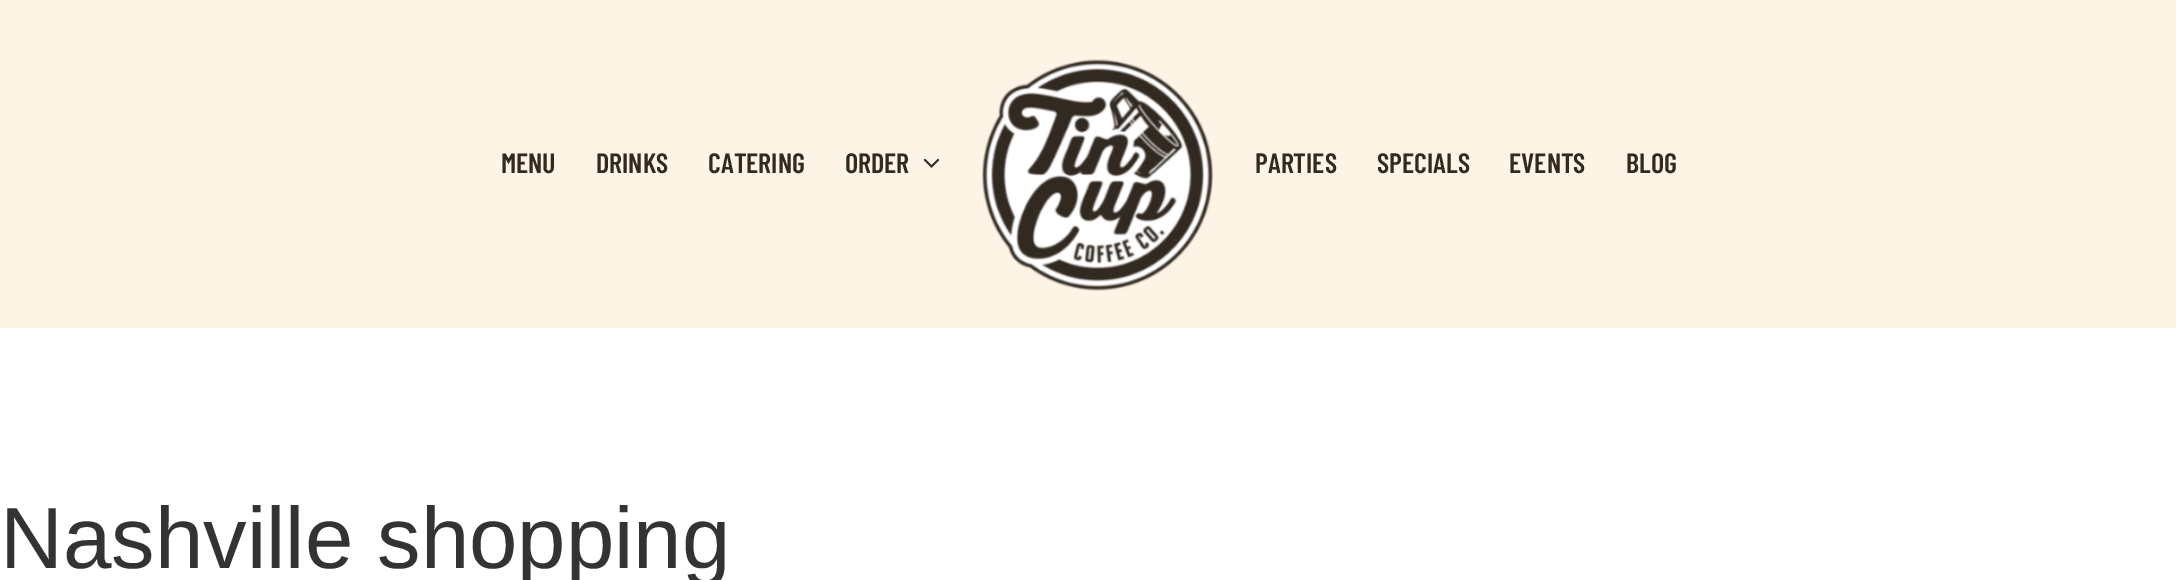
%!PS-Adobe-3.0
%%BoundingBox: 0 0 2176 580
%%LanguageLevel: 3
%%Pages: 1
%%EndComments
%%BeginProlog
/setink { dup -16 bitshift 255 div exch dup -8 bitshift 255 and 255 div exch 255 and 255 div setrgbcolor } def
/usefont { [ exch dup neg 0 0 3 -1 roll 0 0 ] selectfont } def
/drawimage { 5 dict begin { /h /w /y /x /name } { exch def } forall
  gsave x y translate w h scale
  w h 8 [w 0 0 h 0 0] name (r) file false 3 colorimage grestore end } def
%%EndProlog
%%BeginSetup
<< /PageSize [2176 580] >> setpagedevice
%%EndSetup
%%Page: 1 1
0 580 translate 1 -1 scale
4 setmiterlimit
16#FFFFFF setink
0 0 2176 580 rectfill
16#FDF4E5 setink
0 0 2176 328 rectfill
/BarlowCondensed-SemiBold 28 usefont
16#322A21 setink
[
    [(MENU) 501 173]
    [(DRINKS) 596 173]
    [(CATERING) 708 173]
    [(ORDER) 845 173]
] { aload pop moveto show } forall
(img1.raw) 923 158 17 10 drawimage
(img2.raw) 982 59 232 232 drawimage
[
    [(PARTIES) 1255 173]
    [(SPECIALS) 1377 173]
    [(EVENTS) 1509 173]
    [(BLOG) 1626 173]
] { aload pop moveto show } forall
/LiberationSans-Regular 87 usefont
16#333333 setink
0 568 moveto (Nashville shopping) show
showpage
%%EOF
